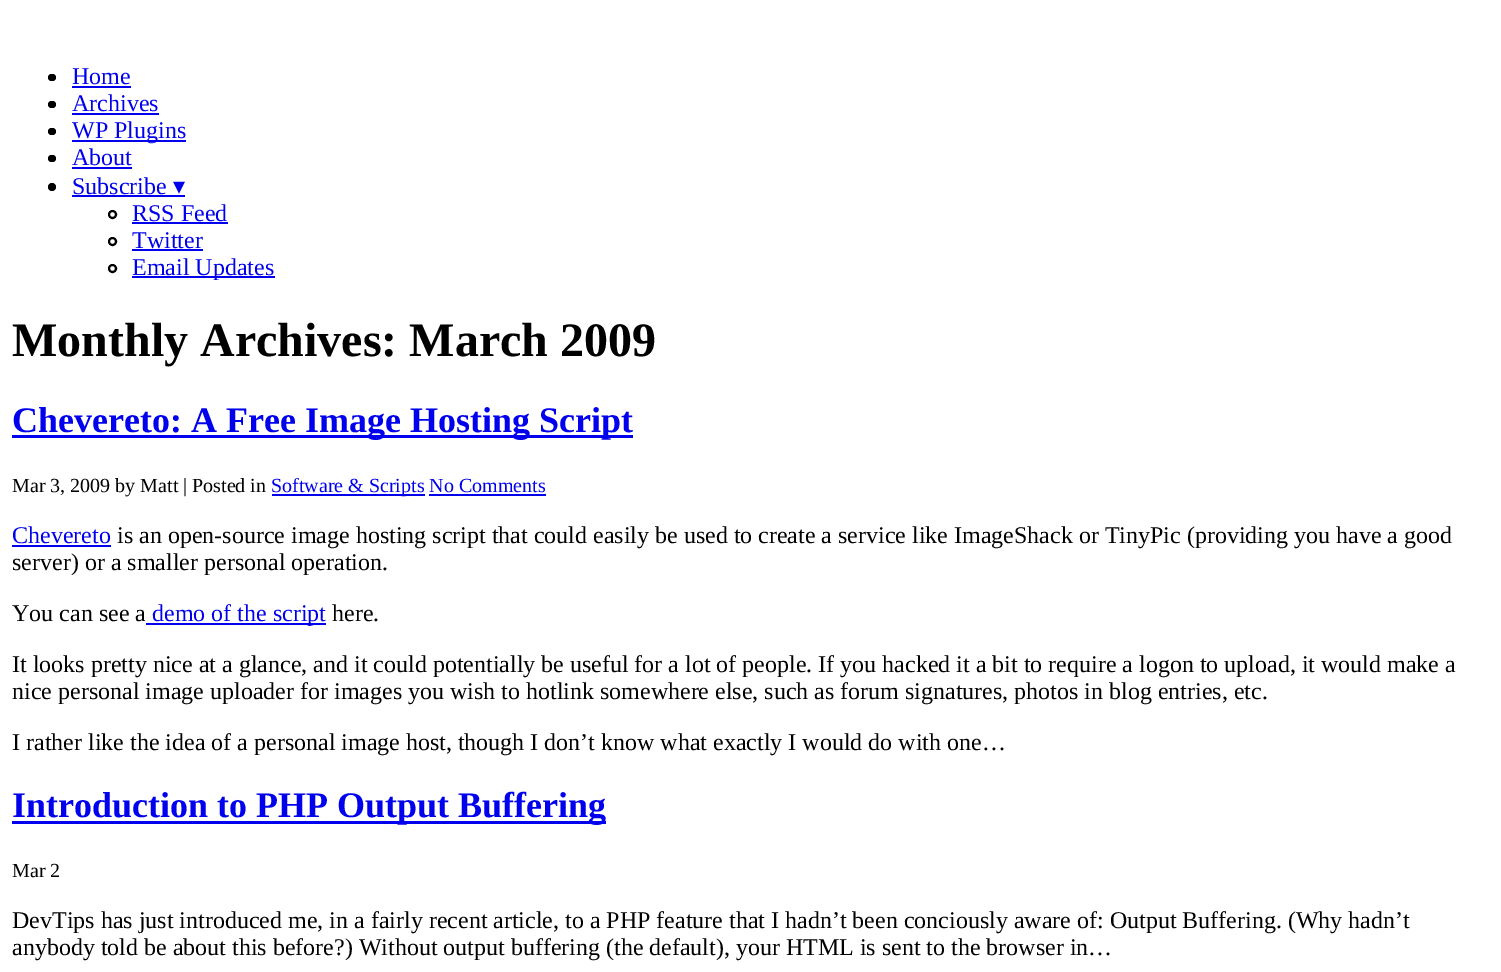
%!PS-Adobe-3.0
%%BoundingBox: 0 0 1501 972
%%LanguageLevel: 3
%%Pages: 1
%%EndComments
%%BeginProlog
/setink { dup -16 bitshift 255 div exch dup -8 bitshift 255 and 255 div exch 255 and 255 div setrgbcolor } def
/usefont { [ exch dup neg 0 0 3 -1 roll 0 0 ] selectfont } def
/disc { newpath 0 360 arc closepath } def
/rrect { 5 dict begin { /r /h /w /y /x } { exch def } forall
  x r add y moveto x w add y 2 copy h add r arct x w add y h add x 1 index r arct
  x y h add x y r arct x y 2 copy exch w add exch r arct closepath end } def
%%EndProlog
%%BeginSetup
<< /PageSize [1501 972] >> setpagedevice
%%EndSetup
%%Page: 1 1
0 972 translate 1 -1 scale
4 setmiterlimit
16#FFFFFF setink
0 0 1501 972 rectfill
16#000000 setink
48 74 8 7 3.5 rrect fill
/LiberationSerif-Regular 24 usefont
16#0000EE setink
72 84 moveto (Home) show
72 86 59 2 rectfill
16#000000 setink
48 101 8 7 3.5 rrect fill
16#0000EE setink
72 111 moveto (Archives) show
72 113 87 2 rectfill
16#000000 setink
48 128 8 7 3.5 rrect fill
16#0000EE setink
72 140 114 2 rectfill
72 138 moveto (WP Plugins) show
16#000000 setink
48 155 8 7 3.5 rrect fill
16#0000EE setink
72 165 moveto (About) show
72 167 60 2 rectfill
16#000000 setink
52 187 4 disc fill
16#0000EE setink
72 194 moveto (Subscribe) show
/DejaVuSans-Regular 24 usefont
173 194 moveto (▾) show
72 195 113 2 rectfill
16#000000 setink
2 setlinewidth
112.5 214.5 3.5 disc stroke
/LiberationSerif-Regular 24 usefont
16#0000EE setink
132 221 moveto (RSS Feed) show
132 222 96 2 rectfill
16#000000 setink
112.5 241.5 3.5 disc stroke
16#0000EE setink
132 248 moveto (Twitter) show
132 249 71 2 rectfill
16#000000 setink
112.5 268.5 3.5 disc stroke
16#0000EE setink
132 276 143 2 rectfill
132 275 moveto (Email Updates) show
/LiberationSerif-Bold 48 usefont
16#000000 setink
12 356 moveto (Monthly Archives: March 2009) show
16#0000EE setink
12 435 621 3 rectfill
/LiberationSerif-Bold 36 usefont
12 432 moveto (Chevereto: A Free Image Hosting Script) show
/LiberationSerif-Regular 20 usefont
16#000000 setink
12 492 moveto (Mar 3, 2009 by Matt | Posted in) show
16#0000EE setink
272 494 153 2 rectfill
271 492 moveto (Software & Scripts No Comments) show
429 494 117 2 rectfill
/LiberationSerif-Regular 24 usefont
12 543 moveto (Chevereto) show
12 545 99 2 rectfill
16#000000 setink
[
    [(is an open-source image hosting script that could easily be used to create a service like ImageShack or TinyPic \(providing you have a good) 117 543]
    [(server\) or a smaller personal operation.) 12 570]
    [(You can see a) 12 621]
] { aload pop moveto show } forall
16#0000EE setink
146 623 180 2 rectfill
152 621 moveto (demo of the script) show
16#000000 setink
[
    [(here.) 332 621]
    [(It looks pretty nice at a glance, and it could potentially be useful for a lot of people. If you hacked it a bit to require a logon to upload, it would make a) 12 672]
    [(nice personal image uploader for images you wish to hotlink somewhere else, such as forum signatures, photos in blog entries, etc.) 12 699]
    [(I rather like the idea of a personal image host, though I don’t know what exactly I would do with one…) 12 750]
] { aload pop moveto show } forall
16#0000EE setink
12 821 594 3 rectfill
/LiberationSerif-Bold 36 usefont
12 817 moveto (Introduction to PHP Output Buffering) show
/LiberationSerif-Regular 20 usefont
16#000000 setink
12 877 moveto (Mar 2) show
/LiberationSerif-Regular 24 usefont
12 928 moveto (DevTips has just introduced me, in a fairly recent article, to a PHP feature that I hadn’t been conciously aware of: Output Buffering. \(Why hadn’t) show
12 955 moveto (anybody told be about this before?\) Without output buffering \(the default\), your HTML is sent to the browser in…) show
showpage
%%EOF
